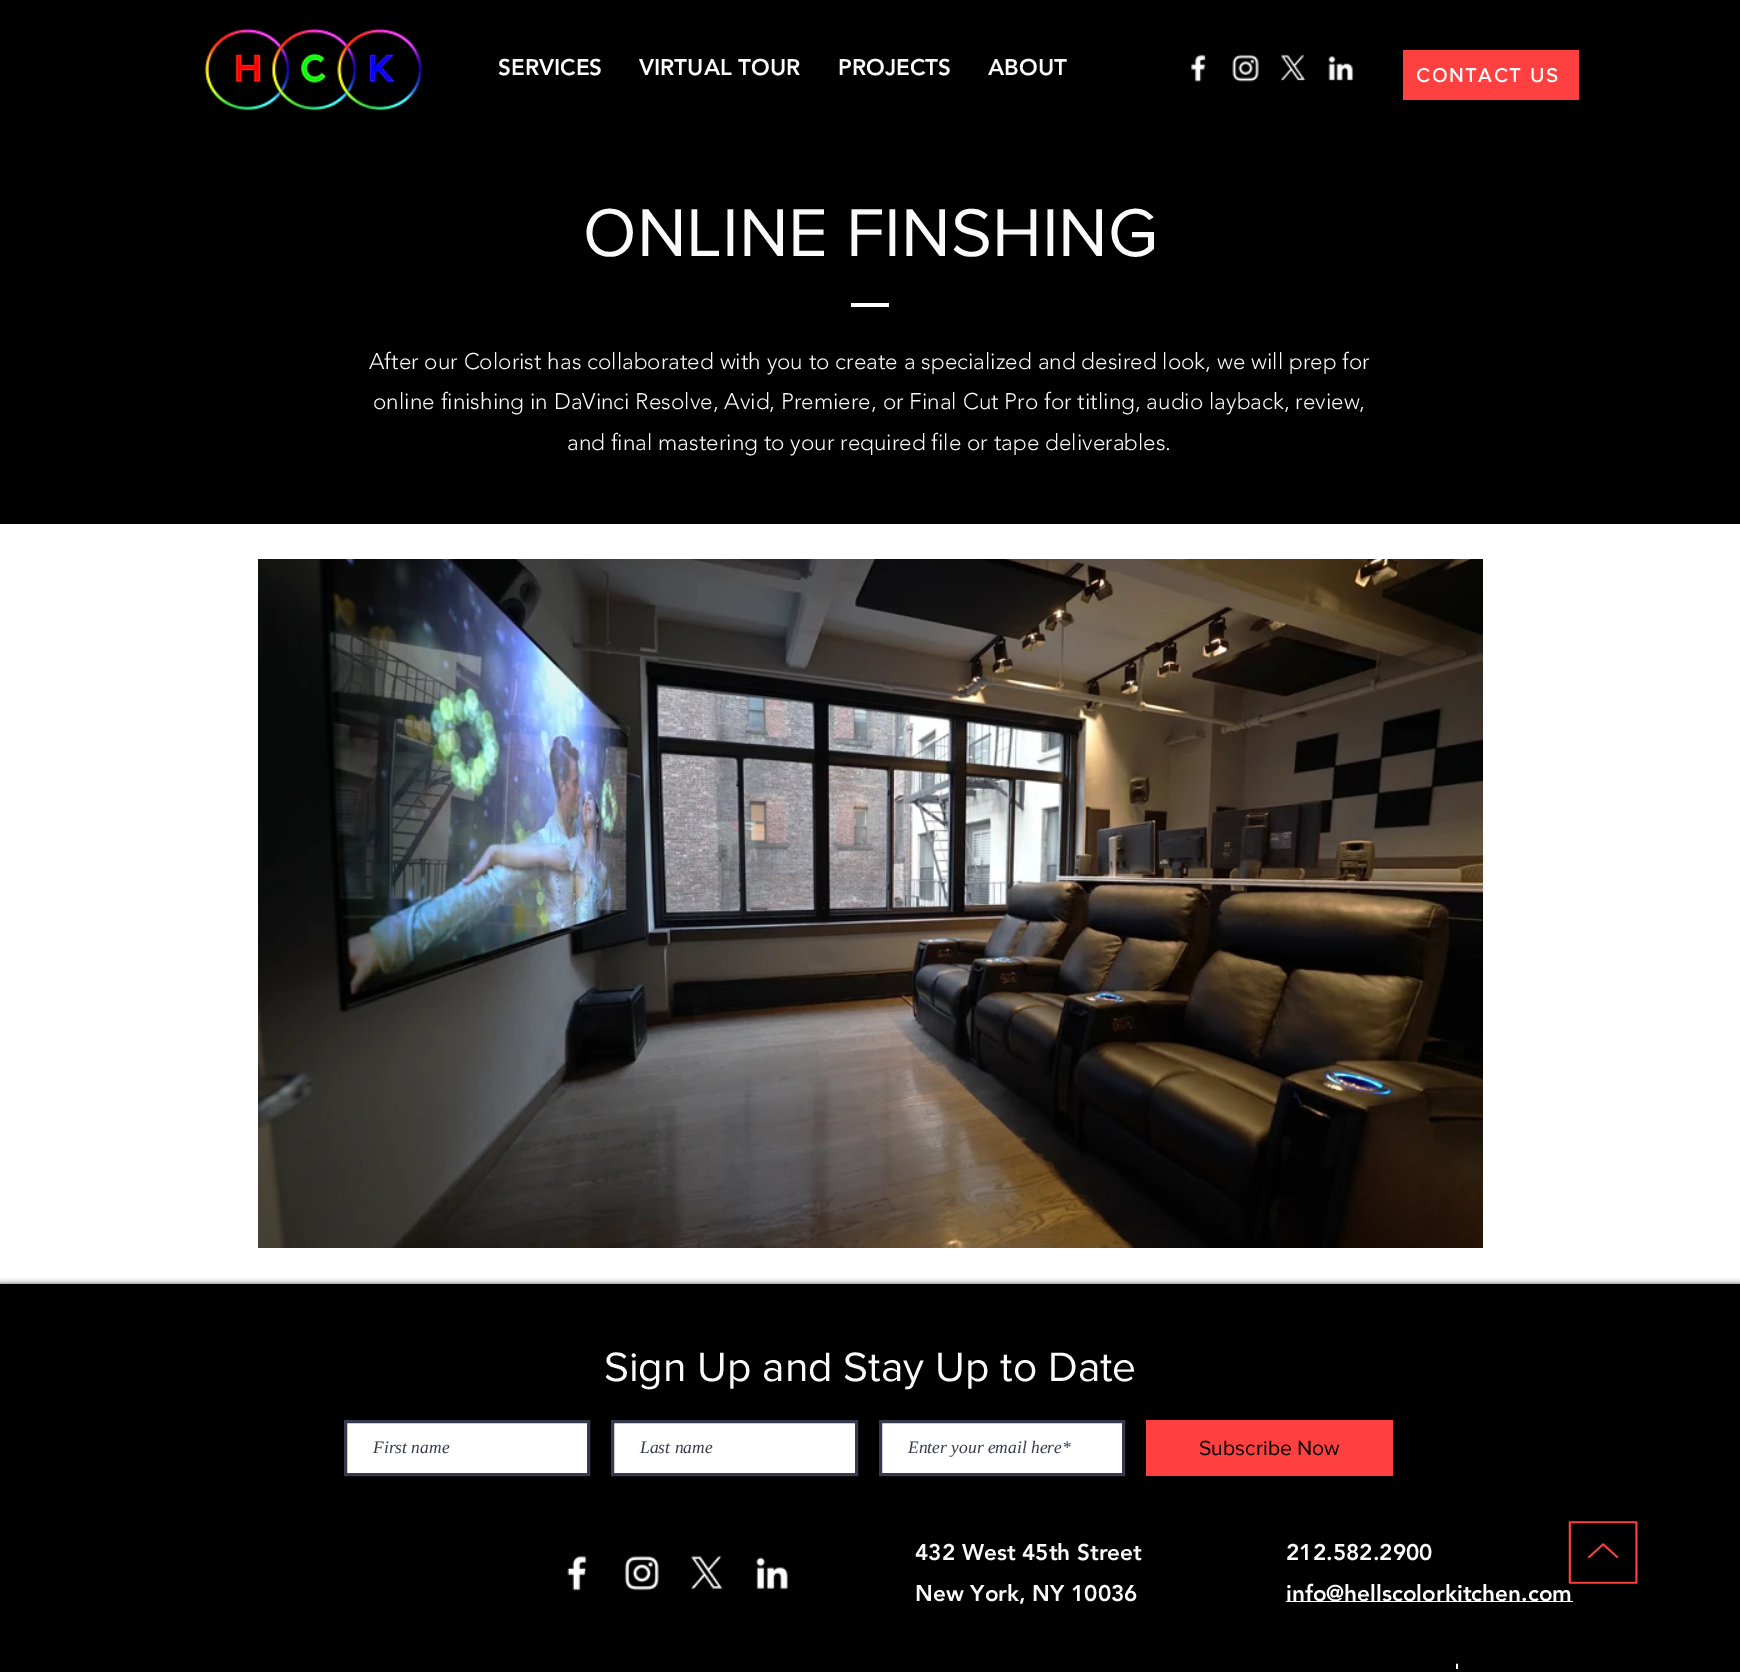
%!PS-Adobe-3.0
%%BoundingBox: 0 0 1740 1672
%%LanguageLevel: 3
%%Pages: 1
%%EndComments
%%BeginProlog
/setink { dup -16 bitshift 255 div exch dup -8 bitshift 255 and 255 div exch 255 and 255 div setrgbcolor } def
/usefont { [ exch dup neg 0 0 3 -1 roll 0 0 ] selectfont } def
/setalpha { dup .setfillconstantalpha .setstrokeconstantalpha } def
/rrect { 5 dict begin { /r /h /w /y /x } { exch def } forall
  x r add y moveto x w add y 2 copy h add r arct x w add y h add x 1 index r arct
  x y h add x y r arct x y 2 copy exch w add exch r arct closepath end } def
/softshadow { 12 dict begin { /a /b /q /h /w /y /x } { exch def } forall gsave /was 0 def
  9 -2 -9 { dup b mul 4 div /e exch def 1 sub .425 mul 2.718 exch exp 1 add a .99 .min exch div /now exch def
    1 1 now sub 1 was sub div sub setalpha /was now def
    w h .min e 2 mul add 0 gt { x e sub y e sub w e 2 mul add h e 2 mul add
      q e add b .6 mul add w h .min 2 div e add .min 0 .max rrect fill } if } for grestore end } def
/drawimage { 5 dict begin { /h /w /y /x /name } { exch def } forall
  gsave x y translate w h scale
  w h 8 [w 0 0 h 0 0] name (r) file false 3 colorimage grestore end } def
%%EndProlog
%%BeginSetup
<< /PageSize [1740 1672] /PageUsesTransparency true >> setpagedevice
%%EndSetup
%%Page: 1 1
0 .pushpdf14devicefilter
0 1672 translate 1 -1 scale
4 setmiterlimit
16#000000 setink
0 0 1740 1672 rectfill
(img1.raw) 204 28 219 83 drawimage
/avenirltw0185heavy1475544-Black 22.5 usefont
16#FAFAFA setink
[
    [(SERVICES) 498 75]
    [(VIRTUAL TOUR) 639 75]
    [(PROJECTS) 838 75]
    [(ABOUT) 988 75]
] { aload pop moveto show } forall
(img2.raw) 1191 54 15 28 drawimage
(img3.raw) 1232 54 27 28 drawimage
(img4.raw) 1281 54 25 27 drawimage
(img5.raw) 1328 56 26 25 drawimage
16#FF4040 setink
1403 50 176 50 rectfill
/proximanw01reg-Bold 20 usefont
16#FAFAFA setink
1416 82 moveto 2 0 (CONTACT US) ashow
/proximanw01reg-Regular 70 usefont
583 256 moveto (ONLINE FINSHING) show
16#FFFFFF setink
851 303 38 4 rectfill
/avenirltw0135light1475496-Light 22.5 usefont
16#FAFAFA setink
[
    [(After our Colorist has collaborated with you to create a specialized and desired look, we will prep for) 369 369]
    [(online finishing in DaVinci Resolve, Avid, Premiere, or Final Cut Pro for titling, audio layback, review,) 373 409]
    [(and final mastering to your required file or tape deliverables.) 567 450]
] { aload pop moveto show } forall
16#FFFFFF setink
0 524 1740 760 rectfill
(img6.raw) 258 559 1225 689 drawimage
gsave
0 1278 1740 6 rectclip
16#000000 setink
0 1284 1740 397 0 3 0.7 softshadow
grestore
/proximanw01reg-Regular 42.5 usefont
16#FAFAFA setink
604 1381 moveto (Sign Up and Stay Up to Date) show
16#FFFFFF setink
345.5 1421.5 moveto 588.5 1421.5 lineto 588.5 1474.5 lineto 345.5 1474.5 lineto closepath gsave fill grestore
16#373B4D setink
3 setlinewidth
stroke
/LiberationSerif-Italic 17.5 usefont
373 1453 moveto (First name) show
16#FFFFFF setink
612.5 1421.5 moveto 856.5 1421.5 lineto 856.5 1474.5 lineto 612.5 1474.5 lineto closepath gsave fill grestore
16#373B4D setink
stroke
640 1453 moveto (Last name) show
16#FFFFFF setink
880.5 1421.5 moveto 1123.5 1421.5 lineto 1123.5 1474.5 lineto 880.5 1474.5 lineto closepath gsave fill grestore
16#373B4D setink
stroke
908 1453 moveto (Enter your email here*) show
16#FF4040 setink
1146 1420 247 56 rectfill
/proximanw01reg-Regular 21.25 usefont
16#000000 setink
1199 1455 moveto (Subscribe Now) show
(img7.raw) 567 1556 20 35 drawimage
(img8.raw) 624 1556 35 35 drawimage
(img9.raw) 691 1556 32 33 drawimage
(img10.raw) 756 1557 32 32 drawimage
/avenirltw0185heavy1475544-Black 22.5 usefont
16#FAFAFA setink
[
    [(432 West 45th Street) 915 1560]
    [(New York, NY 10036) 915 1601]
    [(212.582.2900) 1286 1560]
] { aload pop moveto show } forall
16#FFFFFF setink
1286 1601 287 1 rectfill
16#FAFAFA setink
1286 1601 moveto (info@hellscolorkitchen.com) show
/avenirltw0185heavy1475544-Black 20 usefont
1454 1678 moveto 1 0 (') ashow
(img11.raw) 1568 1521 70 63 drawimage
.poppdf14devicefilter showpage
%%EOF
